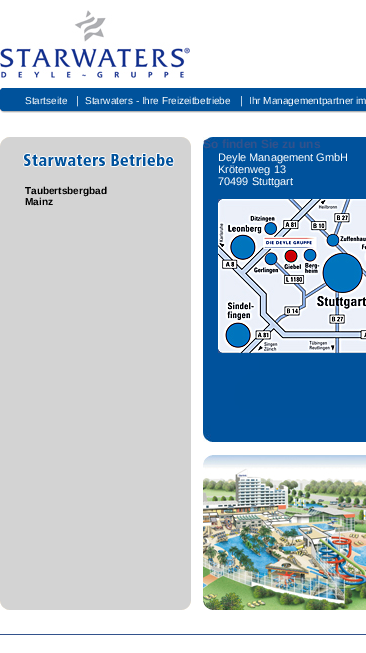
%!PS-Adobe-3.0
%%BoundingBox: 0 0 366 653
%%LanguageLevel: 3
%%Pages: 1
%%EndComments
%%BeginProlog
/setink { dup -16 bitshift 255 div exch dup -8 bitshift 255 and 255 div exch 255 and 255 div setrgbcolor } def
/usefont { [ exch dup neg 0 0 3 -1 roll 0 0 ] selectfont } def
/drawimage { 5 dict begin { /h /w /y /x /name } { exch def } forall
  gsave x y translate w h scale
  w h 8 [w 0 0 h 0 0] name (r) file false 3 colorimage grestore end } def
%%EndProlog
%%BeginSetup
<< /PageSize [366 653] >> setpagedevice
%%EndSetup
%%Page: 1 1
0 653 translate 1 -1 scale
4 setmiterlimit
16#FFFFFF setink
0 0 366 653 rectfill
(img1.raw) 0 10 190 68 drawimage
(img2.raw) 0 88 4 25 drawimage
(img3.raw) 4 88 362 25 drawimage
/LiberationSans-Regular 10 usefont
25 104 moveto (Startseite) show
/LiberationSans-Regular 11 usefont
76 104 moveto (|) show
/LiberationSans-Regular 10 usefont
85 104 moveto (Starwaters - Ihre Freizeitbetriebe) show
/LiberationSans-Regular 11 usefont
240 104 moveto (|) show
/LiberationSans-Regular 10 usefont
249 104 moveto (Ihr Managementpartner im) show
(img4.raw) 203 137 163 305 drawimage
/LiberationSans-Bold 12 usefont
16#33528C setink
203 148 moveto (So finden Sie zu uns) show
/LiberationSans-Regular 11 usefont
16#FFFFFF setink
[
    [(Deyle Management GmbH) 218 161]
    [(Krötenweg 13) 218 173]
    [(70499 Stuttgart) 218 185]
] { aload pop moveto show } forall
(img5.raw) 218 199 148 154 drawimage
16#D3D3D3 setink
0 146 191 455 rectfill
(img6.raw) 0 137 191 9 drawimage
(img7.raw) 23 153 152 15 drawimage
/LiberationSans-Bold 10 usefont
16#000000 setink
25 194 moveto (Taubertsbergbad) show
25 205 moveto (Mainz) show
(img8.raw) 0 601 191 9 drawimage
(img9.raw) 203 455 163 155 drawimage
16#33528C setink
0 634 366 1 rectfill
showpage
%%EOF
